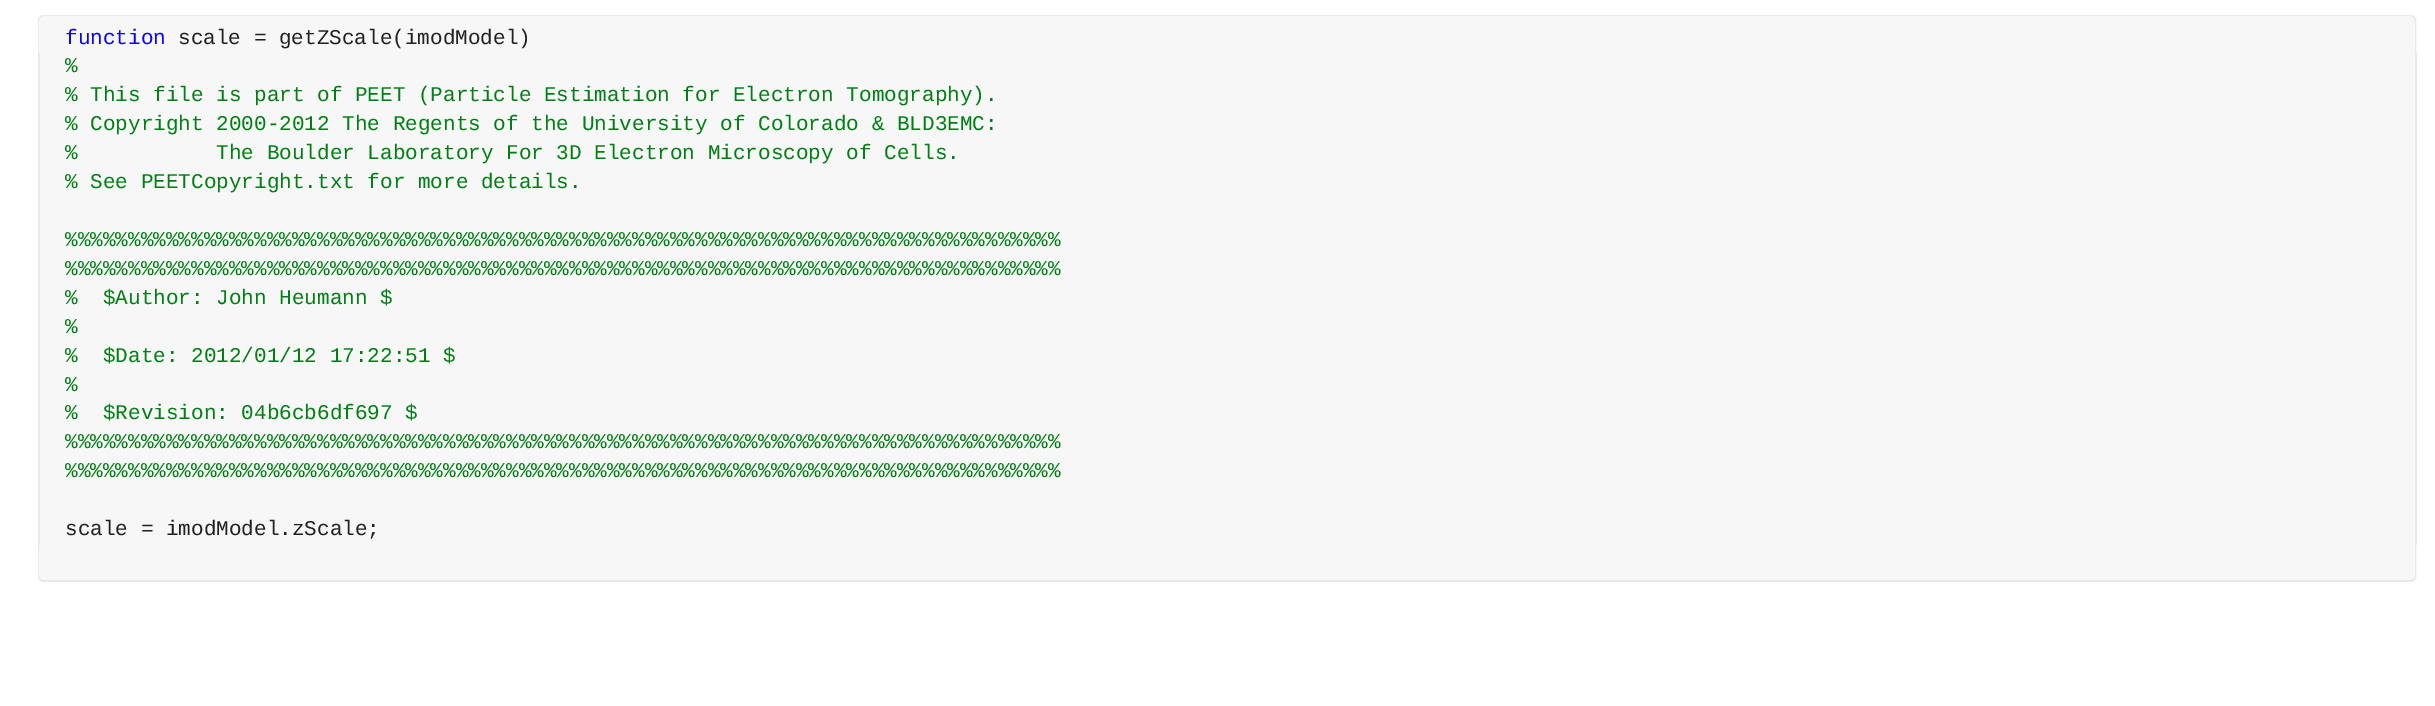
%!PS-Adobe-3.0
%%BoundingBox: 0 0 2435 706
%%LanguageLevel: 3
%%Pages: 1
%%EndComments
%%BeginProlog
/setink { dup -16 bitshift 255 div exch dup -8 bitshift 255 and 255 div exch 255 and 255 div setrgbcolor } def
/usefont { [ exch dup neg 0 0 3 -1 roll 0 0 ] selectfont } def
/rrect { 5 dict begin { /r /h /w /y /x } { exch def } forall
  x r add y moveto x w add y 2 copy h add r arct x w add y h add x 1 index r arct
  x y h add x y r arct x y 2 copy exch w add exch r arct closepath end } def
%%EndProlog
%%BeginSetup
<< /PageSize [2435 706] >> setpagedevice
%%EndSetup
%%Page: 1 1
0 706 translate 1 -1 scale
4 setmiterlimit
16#FFFFFF setink
0 0 2435 706 rectfill
16#F7F7F7 setink
38 15 2379 567 6 rrect fill
16#E9E9E9 setink
44 15 moveto 2410 15 lineto 2414 15 2416 18 2416 21 curveto 2416 52 lineto 38 52 lineto 38 21 lineto 38 18 40 15 44 15 curveto closepath 44 16 moveto 2410 16 lineto 2413 16 2415 19 2415 21 curveto 2415 52 lineto 39 52 lineto 39 21 lineto 39 19 41 16 44 16 curveto closepath eofill
/LiberationMono-Regular 21 usefont
16#0E00FF setink
65 44 moveto (function) show
16#212121 setink
178 44 moveto (scale = getZScale\(imodModel\)) show
16#E9E9E9 setink
2415 53 2 492 rectfill
38 53 2 492 rectfill
16#008013 setink
[
    [(%) 65 72]
    [(% This file is part of PEET \(Particle Estimation for Electron Tomography\).) 65 101]
    [(% Copyright 2000-2012 The Regents of the University of Colorado & BLD3EMC:) 65 130]
    [(%           The Boulder Laboratory For 3D Electron Microscopy of Cells.) 65 159]
    [(% See PEETCopyright.txt for more details.) 65 188]
    [(%%%%%%%%%%%%%%%%%%%%%%%%%%%%%%%%%%%%%%%%%%%%%%%%%%%%%%%%%%%%%%%%%%%%%%%%%%%%%%%) 65 246]
    [(%%%%%%%%%%%%%%%%%%%%%%%%%%%%%%%%%%%%%%%%%%%%%%%%%%%%%%%%%%%%%%%%%%%%%%%%%%%%%%%) 65 275]
    [(%  $Author: John Heumann $) 65 304]
    [(%) 65 333]
    [(%  $Date: 2012/01/12 17:22:51 $) 65 362]
    [(%) 65 391]
    [(%  $Revision: 04b6cb6df697 $) 65 419]
    [(%%%%%%%%%%%%%%%%%%%%%%%%%%%%%%%%%%%%%%%%%%%%%%%%%%%%%%%%%%%%%%%%%%%%%%%%%%%%%%%) 65 448]
    [(%%%%%%%%%%%%%%%%%%%%%%%%%%%%%%%%%%%%%%%%%%%%%%%%%%%%%%%%%%%%%%%%%%%%%%%%%%%%%%%) 65 477]
] { aload pop moveto show } forall
16#212121 setink
65 535 moveto (scale = imodModel.zScale;) show
16#E9E9E9 setink
38 544 moveto 2416 544 lineto 2416 576 lineto 2416 579 2414 582 2410 582 curveto 44 582 lineto 40 582 38 579 38 576 curveto closepath 39 544 moveto 2415 544 lineto 2415 576 lineto 2415 578 2413 580 2410 580 curveto 44 580 lineto 41 580 39 578 39 576 curveto closepath eofill
showpage
%%EOF
